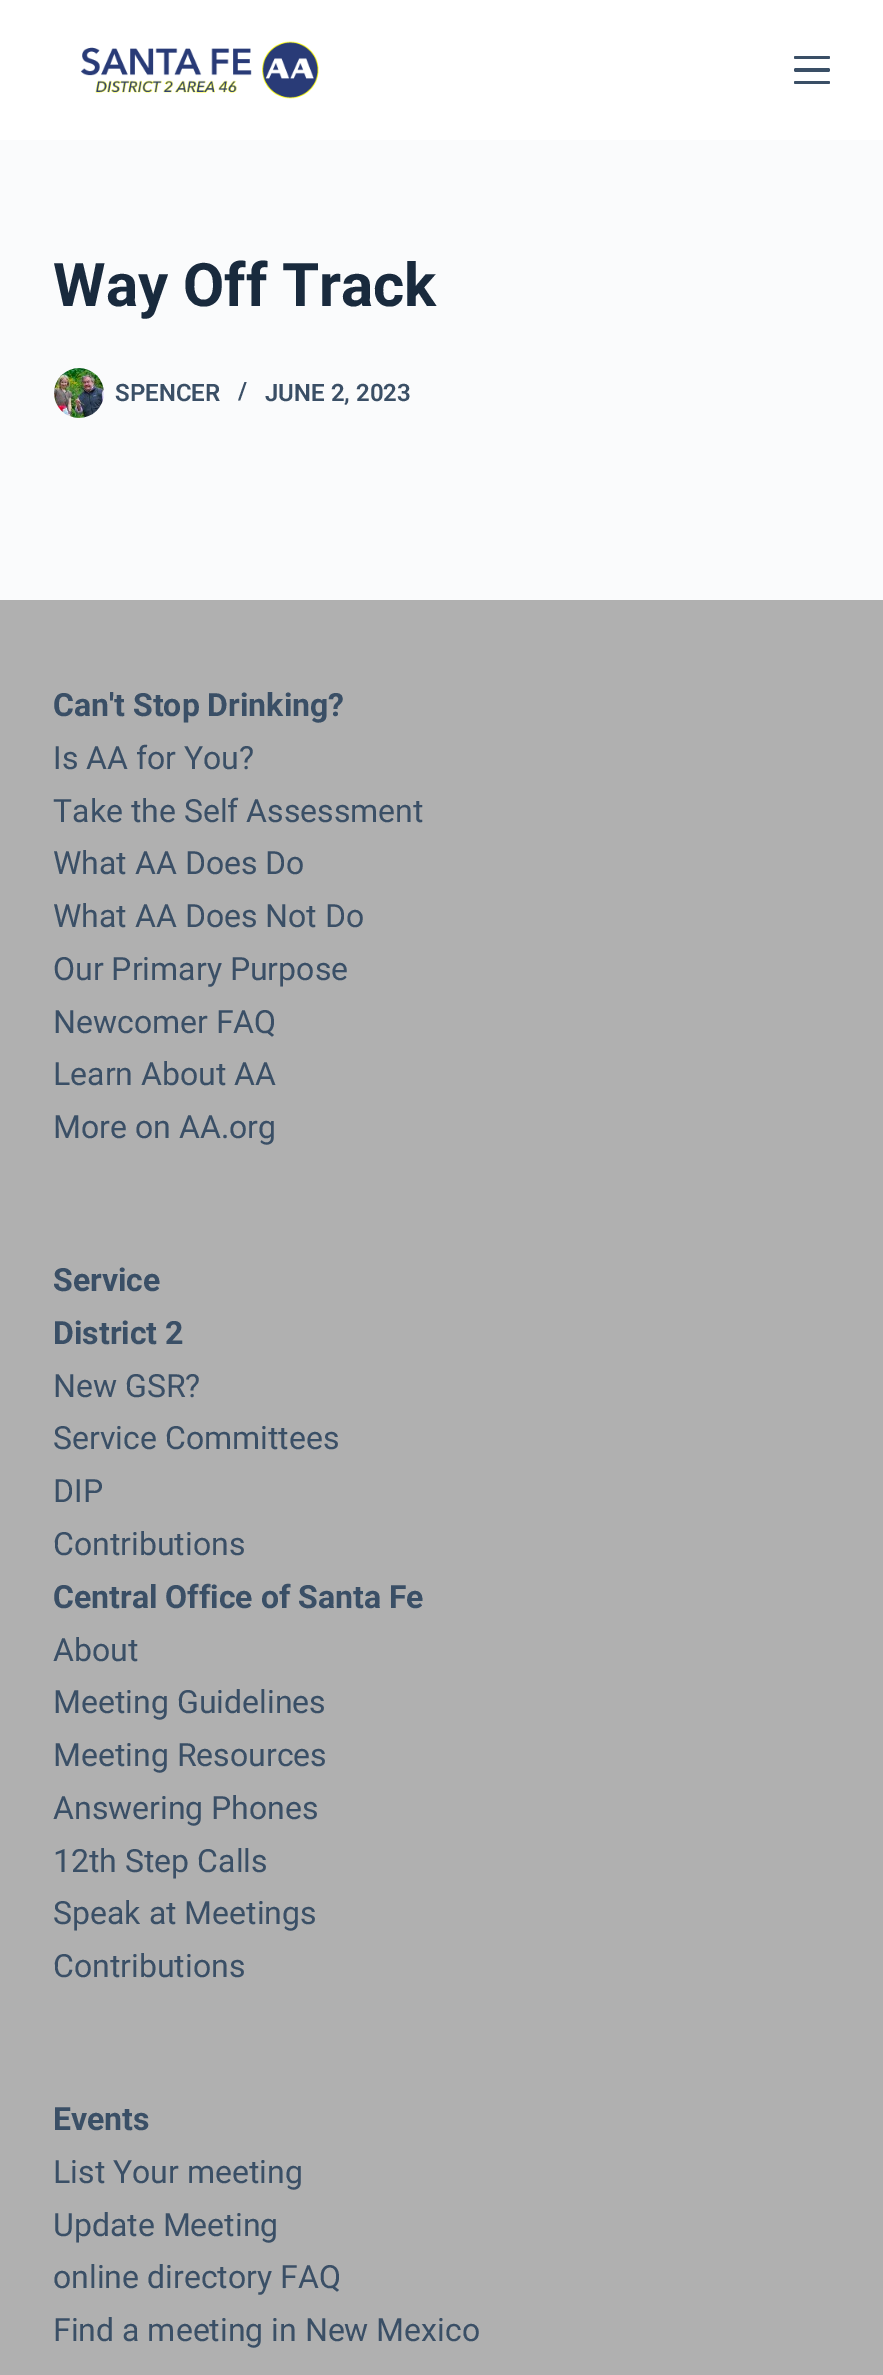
%!PS-Adobe-3.0
%%BoundingBox: 0 0 883 2375
%%LanguageLevel: 3
%%Pages: 1
%%EndComments
%%BeginProlog
/setink { dup -16 bitshift 255 div exch dup -8 bitshift 255 and 255 div exch 255 and 255 div setrgbcolor } def
/usefont { [ exch dup neg 0 0 3 -1 roll 0 0 ] selectfont } def
/rrect { 5 dict begin { /r /h /w /y /x } { exch def } forall
  x r add y moveto x w add y 2 copy h add r arct x w add y h add x 1 index r arct
  x y h add x y r arct x y 2 copy exch w add exch r arct closepath end } def
/drawimage { 5 dict begin { /h /w /y /x /name } { exch def } forall
  gsave x y translate w h scale
  w h 8 [w 0 0 h 0 0] name (r) file false 3 colorimage grestore end } def
%%EndProlog
%%BeginSetup
<< /PageSize [883 2375] >> setpagedevice
%%EndSetup
%%Page: 1 1
0 2375 translate 1 -1 scale
4 setmiterlimit
16#FAFBFC setink
0 0 883 2375 rectfill
16#FFFFFF setink
0 0 883 140 rectfill
(img1.raw) 80 41 239 58 drawimage
16#3A4F66 setink
794 56 36 3 1.5 rrect fill
794 68 36 4 2 rrect fill
794 81 36 3 1.5 rrect fill
/Roboto-Bold 60 usefont
16#192A3D setink
53 306 moveto (Way Off Track) show
(img2.raw) 54 368 50 50 drawimage
/Roboto-SemiBold 24 usefont
16#3A4F66 setink
[
    [(SPENCER) 115 401]
    [(/) 238 399]
    [(JUNE 2, 2023) 265 401]
] { aload pop moveto show } forall
16#B0B0B0 setink
0 600 883 1775 rectfill
/Roboto-Bold 32 usefont
16#3A4F66 setink
53 716 moveto (Can't Stop Drinking?) show
/Roboto-Regular 32 usefont
[
    [(Is AA for You?) 53 769]
    [(Take the Self Assessment) 53 822]
    [(What AA Does Do) 53 874]
    [(What AA Does Not Do) 53 927]
    [(Our Primary Purpose) 53 980]
    [(Newcomer FAQ) 53 1033]
    [(Learn About AA) 53 1085]
    [(More on AA.org) 53 1138]
] { aload pop moveto show } forall
/Roboto-Bold 32 usefont
53 1291 moveto (Service) show
53 1344 moveto (District 2) show
/Roboto-Regular 32 usefont
[
    [(New GSR?) 53 1397]
    [(Service Committees) 53 1449]
    [(DIP) 53 1502]
    [(Contributions) 53 1555]
] { aload pop moveto show } forall
/Roboto-Bold 32 usefont
53 1608 moveto (Central Office of Santa Fe) show
/Roboto-Regular 32 usefont
[
    [(About) 53 1661]
    [(Meeting Guidelines) 53 1713]
    [(Meeting Resources) 53 1766]
    [(Answering Phones) 53 1819]
    [(12th Step Calls) 53 1872]
    [(Speak at Meetings) 53 1924]
    [(Contributions) 53 1977]
] { aload pop moveto show } forall
/Roboto-Bold 32 usefont
53 2130 moveto (Events) show
/Roboto-Regular 32 usefont
[
    [(List Your meeting) 53 2183]
    [(Update Meeting) 53 2236]
    [(online directory FAQ) 53 2288]
    [(Find a meeting in New Mexico) 53 2341]
] { aload pop moveto show } forall
showpage
%%EOF
